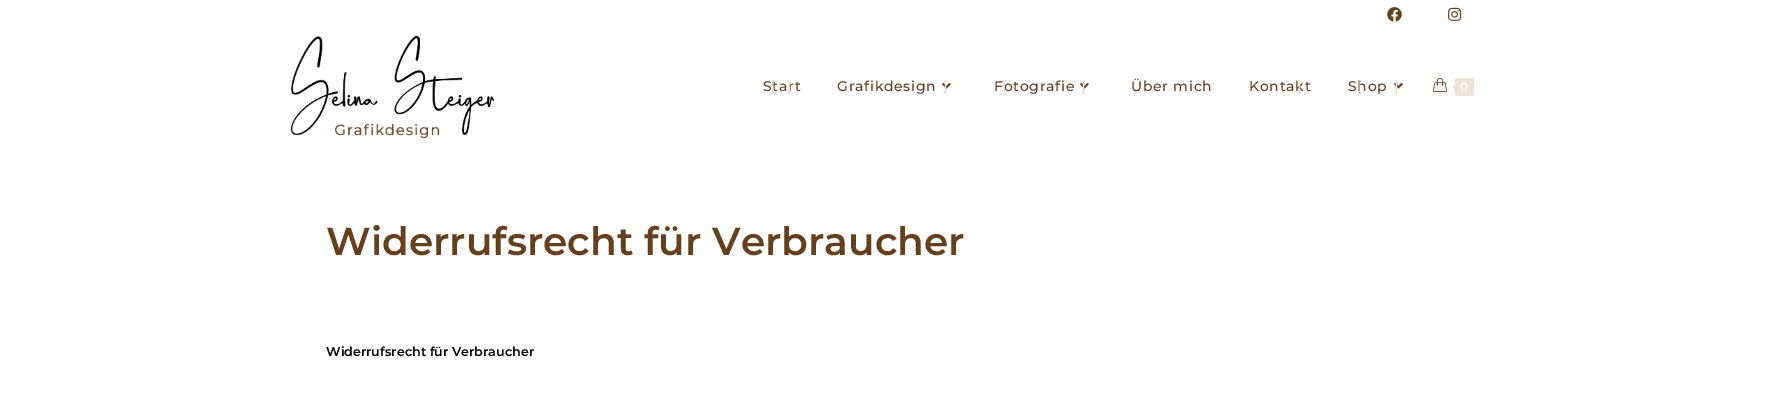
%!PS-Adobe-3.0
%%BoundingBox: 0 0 1771 394
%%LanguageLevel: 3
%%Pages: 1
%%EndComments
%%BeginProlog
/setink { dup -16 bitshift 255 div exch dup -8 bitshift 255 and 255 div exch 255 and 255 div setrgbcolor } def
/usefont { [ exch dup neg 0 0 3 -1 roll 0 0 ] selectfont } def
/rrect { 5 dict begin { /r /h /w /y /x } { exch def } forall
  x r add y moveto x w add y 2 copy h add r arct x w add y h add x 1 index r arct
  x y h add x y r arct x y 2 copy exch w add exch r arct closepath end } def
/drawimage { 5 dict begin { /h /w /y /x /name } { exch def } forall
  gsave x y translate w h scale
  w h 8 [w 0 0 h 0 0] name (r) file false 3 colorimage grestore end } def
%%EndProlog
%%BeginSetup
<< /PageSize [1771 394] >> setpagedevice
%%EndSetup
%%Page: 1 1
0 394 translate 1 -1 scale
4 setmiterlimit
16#FFFFFF setink
0 0 1771 394 rectfill
(img1.raw) 1387 7 15 15 drawimage
(img2.raw) 1448 7 14 14 drawimage
(img3.raw) 291 36 203 102 drawimage
/Montserrat-Medium 14 usefont
16#663F1C setink
763 91 moveto 0.75 0 (Start) ashow
16#D4C9BF setink
771 91 moveto 0.75 0 ([) ashow
16#DDD5CD setink
787 91 moveto 0.75 0 (]) ashow
16#663F1C setink
837 91 moveto 0.75 0 (Grafikdesign) ashow
(img4.raw) 942 83 9 6 drawimage
16#E2DAD3 setink
943 91 moveto 0.75 0 (]) ashow
16#663F1C setink
994 91 moveto 0.75 0 (Fotografie) ashow
16#EAE5E0 setink
1002 91 moveto 0.75 0 ([) ashow
(img4.raw) 1080 83 9 6 drawimage
16#E2DAD3 setink
1081 91 moveto 0.75 0 (]) ashow
16#663F1C setink
1131 91 moveto 0.75 0 (Über mich) ashow
1249 91 moveto 0.75 0 (Kontakt) ashow
16#E2DAD3 setink
1297 91 moveto 0.75 0 (]) ashow
16#663F1C setink
1348 91 moveto 0.75 0 (Shop) ashow
16#C9BBAF setink
1357 91 moveto 0.75 0 ([) ashow
(img4.raw) 1394 83 9 6 drawimage
16#E2DAD3 setink
1394 91 moveto 0.75 0 (]) ashow
(img5.raw) 1433 77 14 15 drawimage
16#EBE3D9 setink
1455 78 19 18 2 rrect fill
1457 82 moveto 1457 92 lineto 1452 87 lineto closepath fill
/Montserrat-SemiBold 12 usefont
16#FFFFFF setink
1460 91 moveto (0) show
/Montserrat-SemiBold 39 usefont
16#663F1C setink
326 255 moveto (Widerrufsrecht für Verbraucher) show
/Montserrat-SemiBold 12.7 usefont
16#000000 setink
326 356 moveto (Widerrufsrecht für Verbraucher) show
showpage
%%EOF
